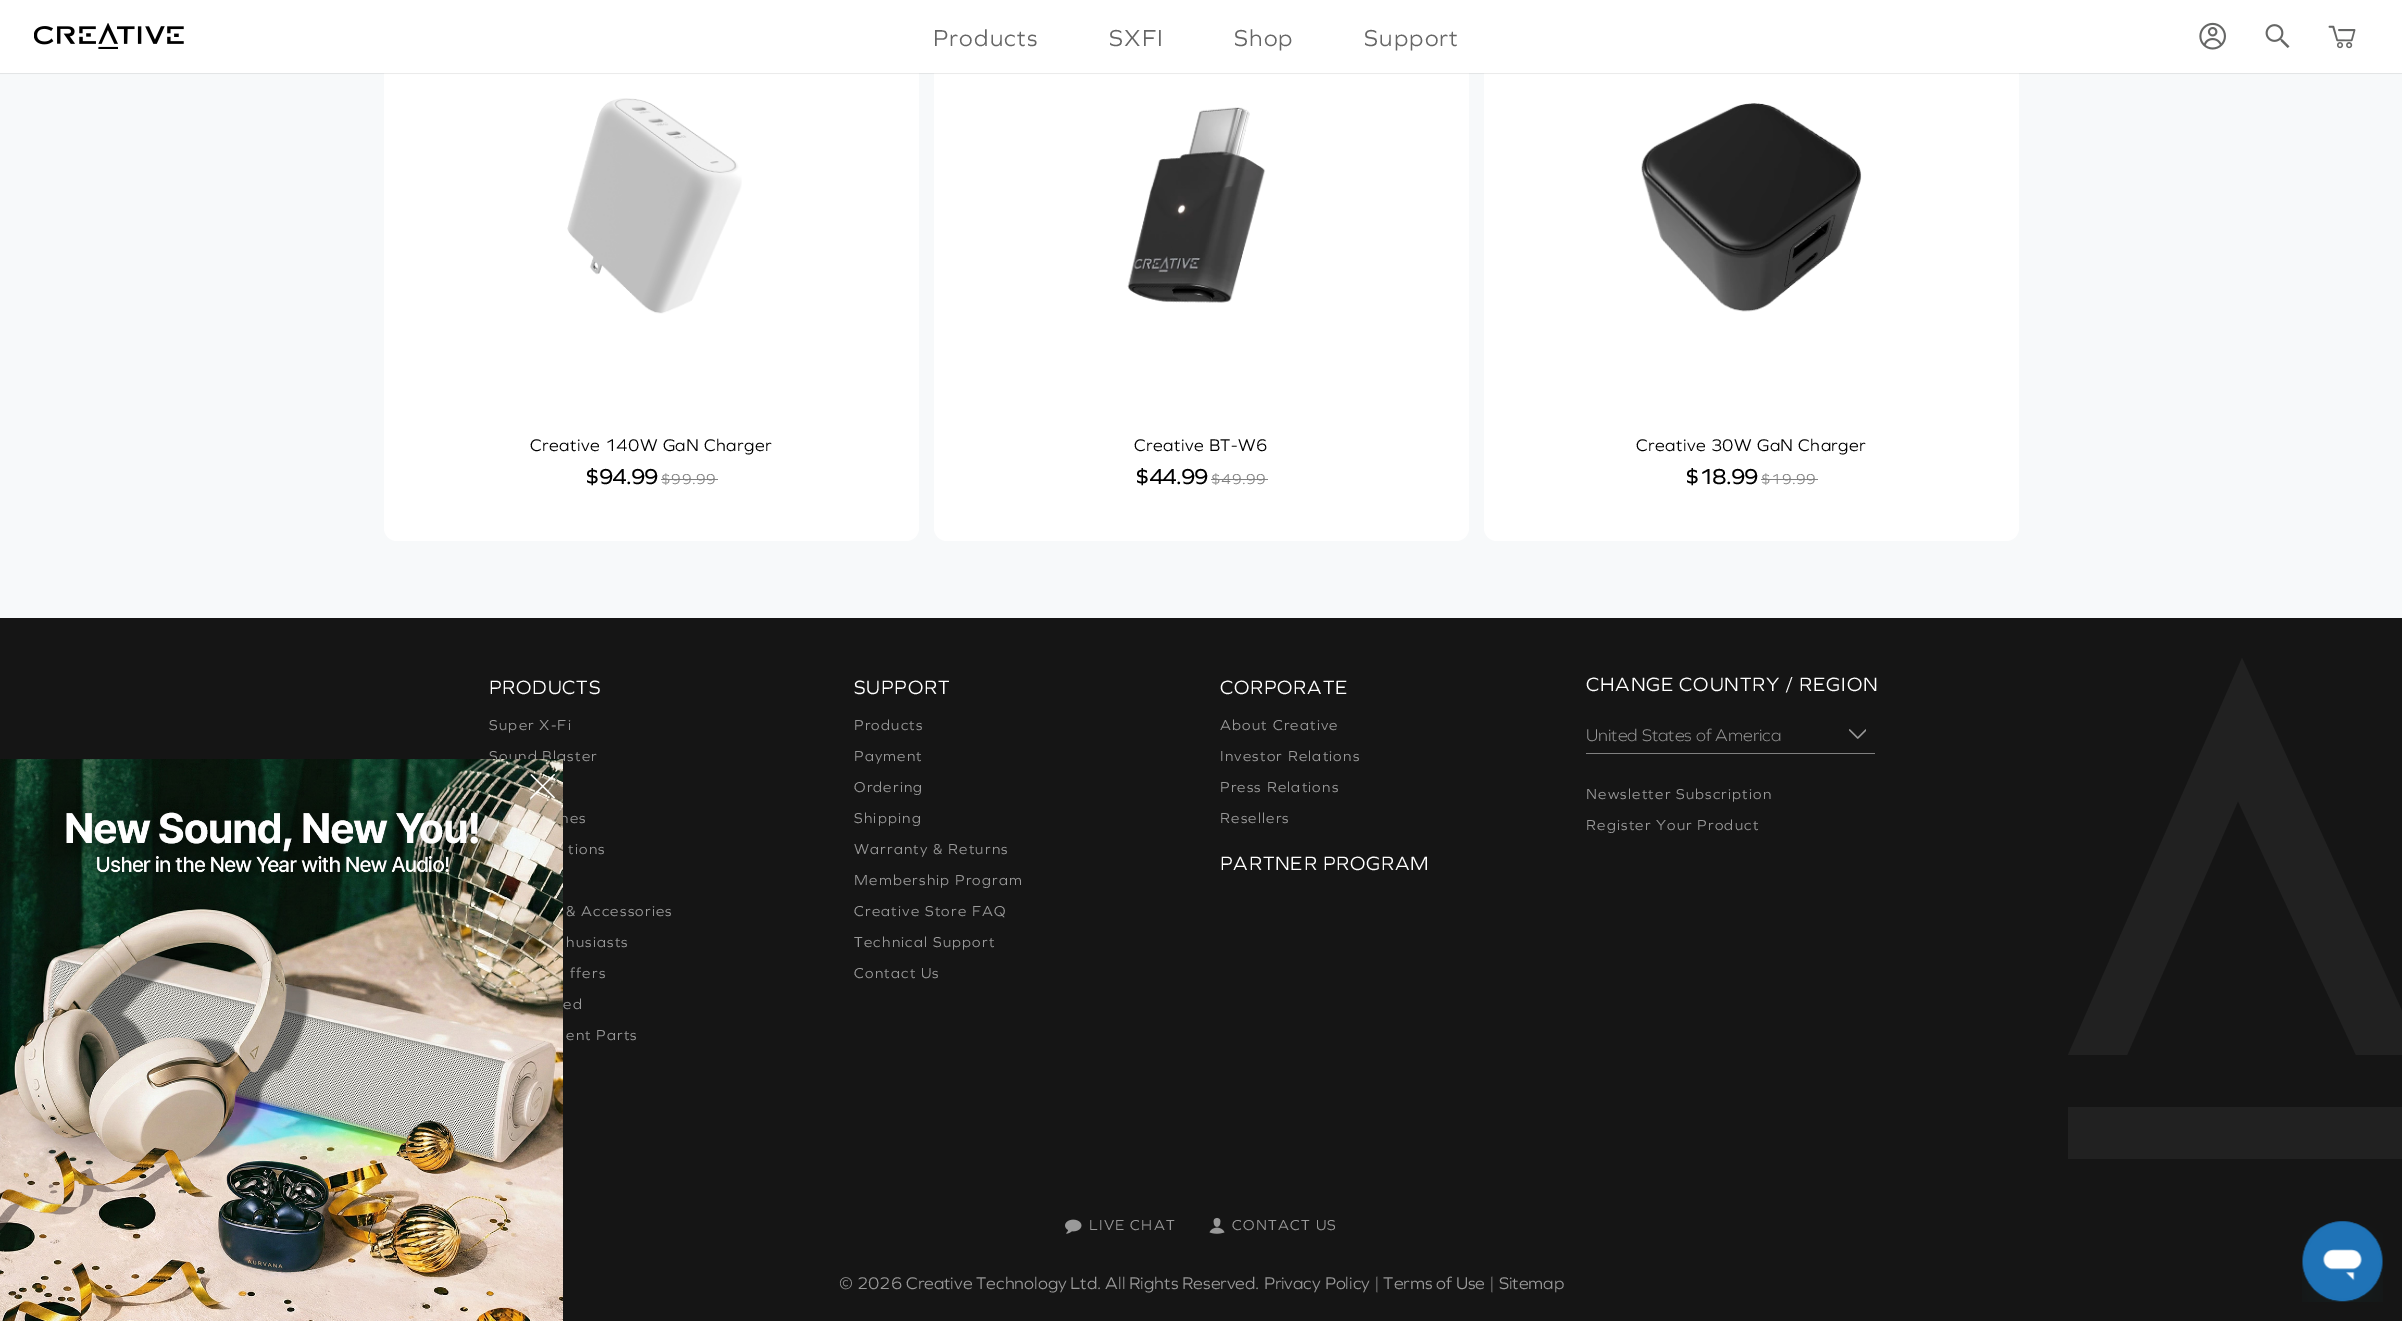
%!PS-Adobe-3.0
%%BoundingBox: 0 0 2402 1321
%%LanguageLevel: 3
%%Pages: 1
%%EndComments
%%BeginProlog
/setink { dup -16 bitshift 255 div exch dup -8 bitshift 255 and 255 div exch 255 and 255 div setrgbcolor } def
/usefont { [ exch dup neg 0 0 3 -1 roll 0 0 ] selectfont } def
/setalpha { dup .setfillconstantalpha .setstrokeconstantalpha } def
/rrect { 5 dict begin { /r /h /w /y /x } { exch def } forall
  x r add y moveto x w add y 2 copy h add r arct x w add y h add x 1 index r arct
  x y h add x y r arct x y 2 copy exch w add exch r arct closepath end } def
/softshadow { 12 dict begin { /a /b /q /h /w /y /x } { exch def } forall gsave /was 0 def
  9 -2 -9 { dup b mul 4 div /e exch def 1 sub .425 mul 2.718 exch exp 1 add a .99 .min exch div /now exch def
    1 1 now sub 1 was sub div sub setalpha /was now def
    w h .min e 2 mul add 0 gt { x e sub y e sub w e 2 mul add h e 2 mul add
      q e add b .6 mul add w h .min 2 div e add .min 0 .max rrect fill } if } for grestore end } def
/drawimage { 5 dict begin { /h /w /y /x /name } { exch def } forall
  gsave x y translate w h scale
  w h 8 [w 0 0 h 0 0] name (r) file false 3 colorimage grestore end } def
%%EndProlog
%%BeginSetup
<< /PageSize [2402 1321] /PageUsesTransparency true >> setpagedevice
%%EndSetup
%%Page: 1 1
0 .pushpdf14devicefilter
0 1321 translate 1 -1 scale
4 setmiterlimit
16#F7F9FA setink
0 0 2402 1321 rectfill
16#FFFFFF setink
384 6 535 535 13 rrect fill
934 6 535 535 13 rrect fill
1484 6 535 535 13 rrect fill
16#000000 setink
0 0 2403 73 0 0.5 0.3 softshadow
16#FFFFFF setink
0 0 2402 73 rectfill
(img1.raw) 2199 22 27 28 drawimage
(img2.raw) 2265 24 25 24 drawimage
(img3.raw) 2328 25 28 24 drawimage
16#151515 setink
0 618 2402 703 rectfill
/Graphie-Regular 15 usefont
16#999999 setink
489 761 moveto 1.2 0 (Sound Blaster) ashow
560 823 moveto 1.2 0 (nes) ashow
(img4.raw) 0 759 563 562 drawimage
16#FFFFFF setink
530.5 775 moveto 531.5 774 lineto 555 797.5 lineto 554 798.5 lineto closepath 554 774 moveto 555 774.5 lineto 531 799 lineto 530 798 lineto closepath fill
(img5.raw) 34 23 150 26 drawimage
/Graphie-Regular 24 usefont
16#666666 setink
933 46 moveto 1.2 0 (Products) ashow
1109 46 moveto 1.2 0 (SXFI) ashow
1234 46 moveto 1.2 0 (Shop) ashow
1364 46 moveto 1.2 0 (Support) ashow
(img6.raw) 567 98 175 216 drawimage
/Graphie-Regular 17.5 usefont
16#000000 setink
530 451 moveto 0.5 0 (Creative 140W GaN Charger) ashow
/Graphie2-Regular 22.5 usefont
585 484 moveto -1 0 ($94.99) ashow
/Graphie-Regular 15 usefont
16#808080 setink
661 484 moveto 0.5 0 ($99.99) ashow
661 479 57 1 rectfill
(img7.raw) 1127 107 139 196 drawimage
/Graphie-Regular 17.5 usefont
16#000000 setink
1134 451 moveto 0.5 0 (Creative BT-W6) ashow
/Graphie2-Regular 22.5 usefont
1135 484 moveto -1 0 ($44.99) ashow
/Graphie-Regular 15 usefont
16#808080 setink
1211 484 moveto 0.5 0 ($49.99) ashow
1211 479 57 1 rectfill
(img8.raw) 1641 103 221 209 drawimage
/Graphie-Regular 17.5 usefont
16#000000 setink
1636 451 moveto 0.5 0 (Creative 30W GaN Charger) ashow
/Graphie2-Regular 22.5 usefont
1685 484 moveto -1 0 ($18.99) ashow
/Graphie-Regular 15 usefont
16#808080 setink
1761 484 moveto 0.5 0 ($19.99) ashow
1761 479 57 1 rectfill
16#212121 setink
2238 801 moveto 2356 1055 lineto 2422 1055 lineto 2242 658 lineto 2068 1055 lineto 2127 1055 lineto closepath 2068 1159 moveto 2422 1159 lineto 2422 1107 lineto 2068 1107 lineto closepath fill
/Graphie-Regular 20 usefont
16#FFFFFF setink
489 694 moveto 0.8 0 (PRODUCTS) ashow
/Graphie-Regular 15 usefont
16#999999 setink
489 730 moveto 1.2 0 (Super X-Fi) ashow
568 854 moveto 1.2 0 (tions) ashow
566 916 moveto 1.2 0 (& Accessories) ashow
566 947 moveto 1.2 0 (husiasts) ashow
570 978 moveto 1.2 0 (ffers) ashow
563 1009 moveto 1.2 0 (ed) ashow
566 1040 moveto 1.2 0 (ent Parts) ashow
/Graphie-Regular 20 usefont
16#FFFFFF setink
854 694 moveto 0.8 0 (SUPPORT) ashow
/Graphie-Regular 15 usefont
16#999999 setink
854 730 moveto 1.2 0 (Products) ashow
854 761 moveto 1.2 0 (Payment) ashow
854 792 moveto 1.2 0 (Ordering) ashow
854 823 moveto 1.2 0 (Shipping) ashow
854 854 moveto 1.2 0 (Warranty & Returns) ashow
854 885 moveto 1.2 0 (Membership Program) ashow
854 916 moveto 1.2 0 (Creative Store FAQ) ashow
854 947 moveto 1.2 0 (Technical Support) ashow
854 978 moveto 1.2 0 (Contact Us) ashow
/Graphie-Regular 20 usefont
16#FFFFFF setink
1220 694 moveto 0.8 0 (CORPORATE) ashow
/Graphie-Regular 15 usefont
16#999999 setink
1220 730 moveto 1.2 0 (About Creative) ashow
1220 761 moveto 1.2 0 (Investor Relations) ashow
1220 792 moveto 1.2 0 (Press Relations) ashow
1220 823 moveto 1.2 0 (Resellers) ashow
/Graphie-Regular 20 usefont
16#FFFFFF setink
1220 870 moveto 0.8 0 (PARTNER PROGRAM) ashow
1586 691 moveto 0.8 0 (CHANGE COUNTRY / REGION) ashow
(img9.raw) 1849 729 17 10 drawimage
16#808080 setink
1586 753 289 1 rectfill
/Graphie-Light 17.5 usefont
16#999999 setink
1586 741 moveto (United States of America) show
/Graphie-Regular 15 usefont
1586 799 moveto 1.2 0 (Newsletter Subscription) ashow
1586 830 moveto 1.2 0 (Register Your Product) ashow
(img10.raw) 1065 1219 17 15 drawimage
1089 1230 moveto 1.25 0 (LIVE CHAT) ashow
(img11.raw) 1209 1217 16 17 drawimage
1232 1230 moveto 1.25 0 (CONTACT US) ashow
/Graphie-Regular 17.5 usefont
839 1289 moveto (© 2026 Creative Technology Ltd. All Rights Reserved. Privacy Policy | Terms of Use | Sitemap) show
(img12.raw) 2302 1221 81 81 drawimage
.poppdf14devicefilter showpage
%%EOF
